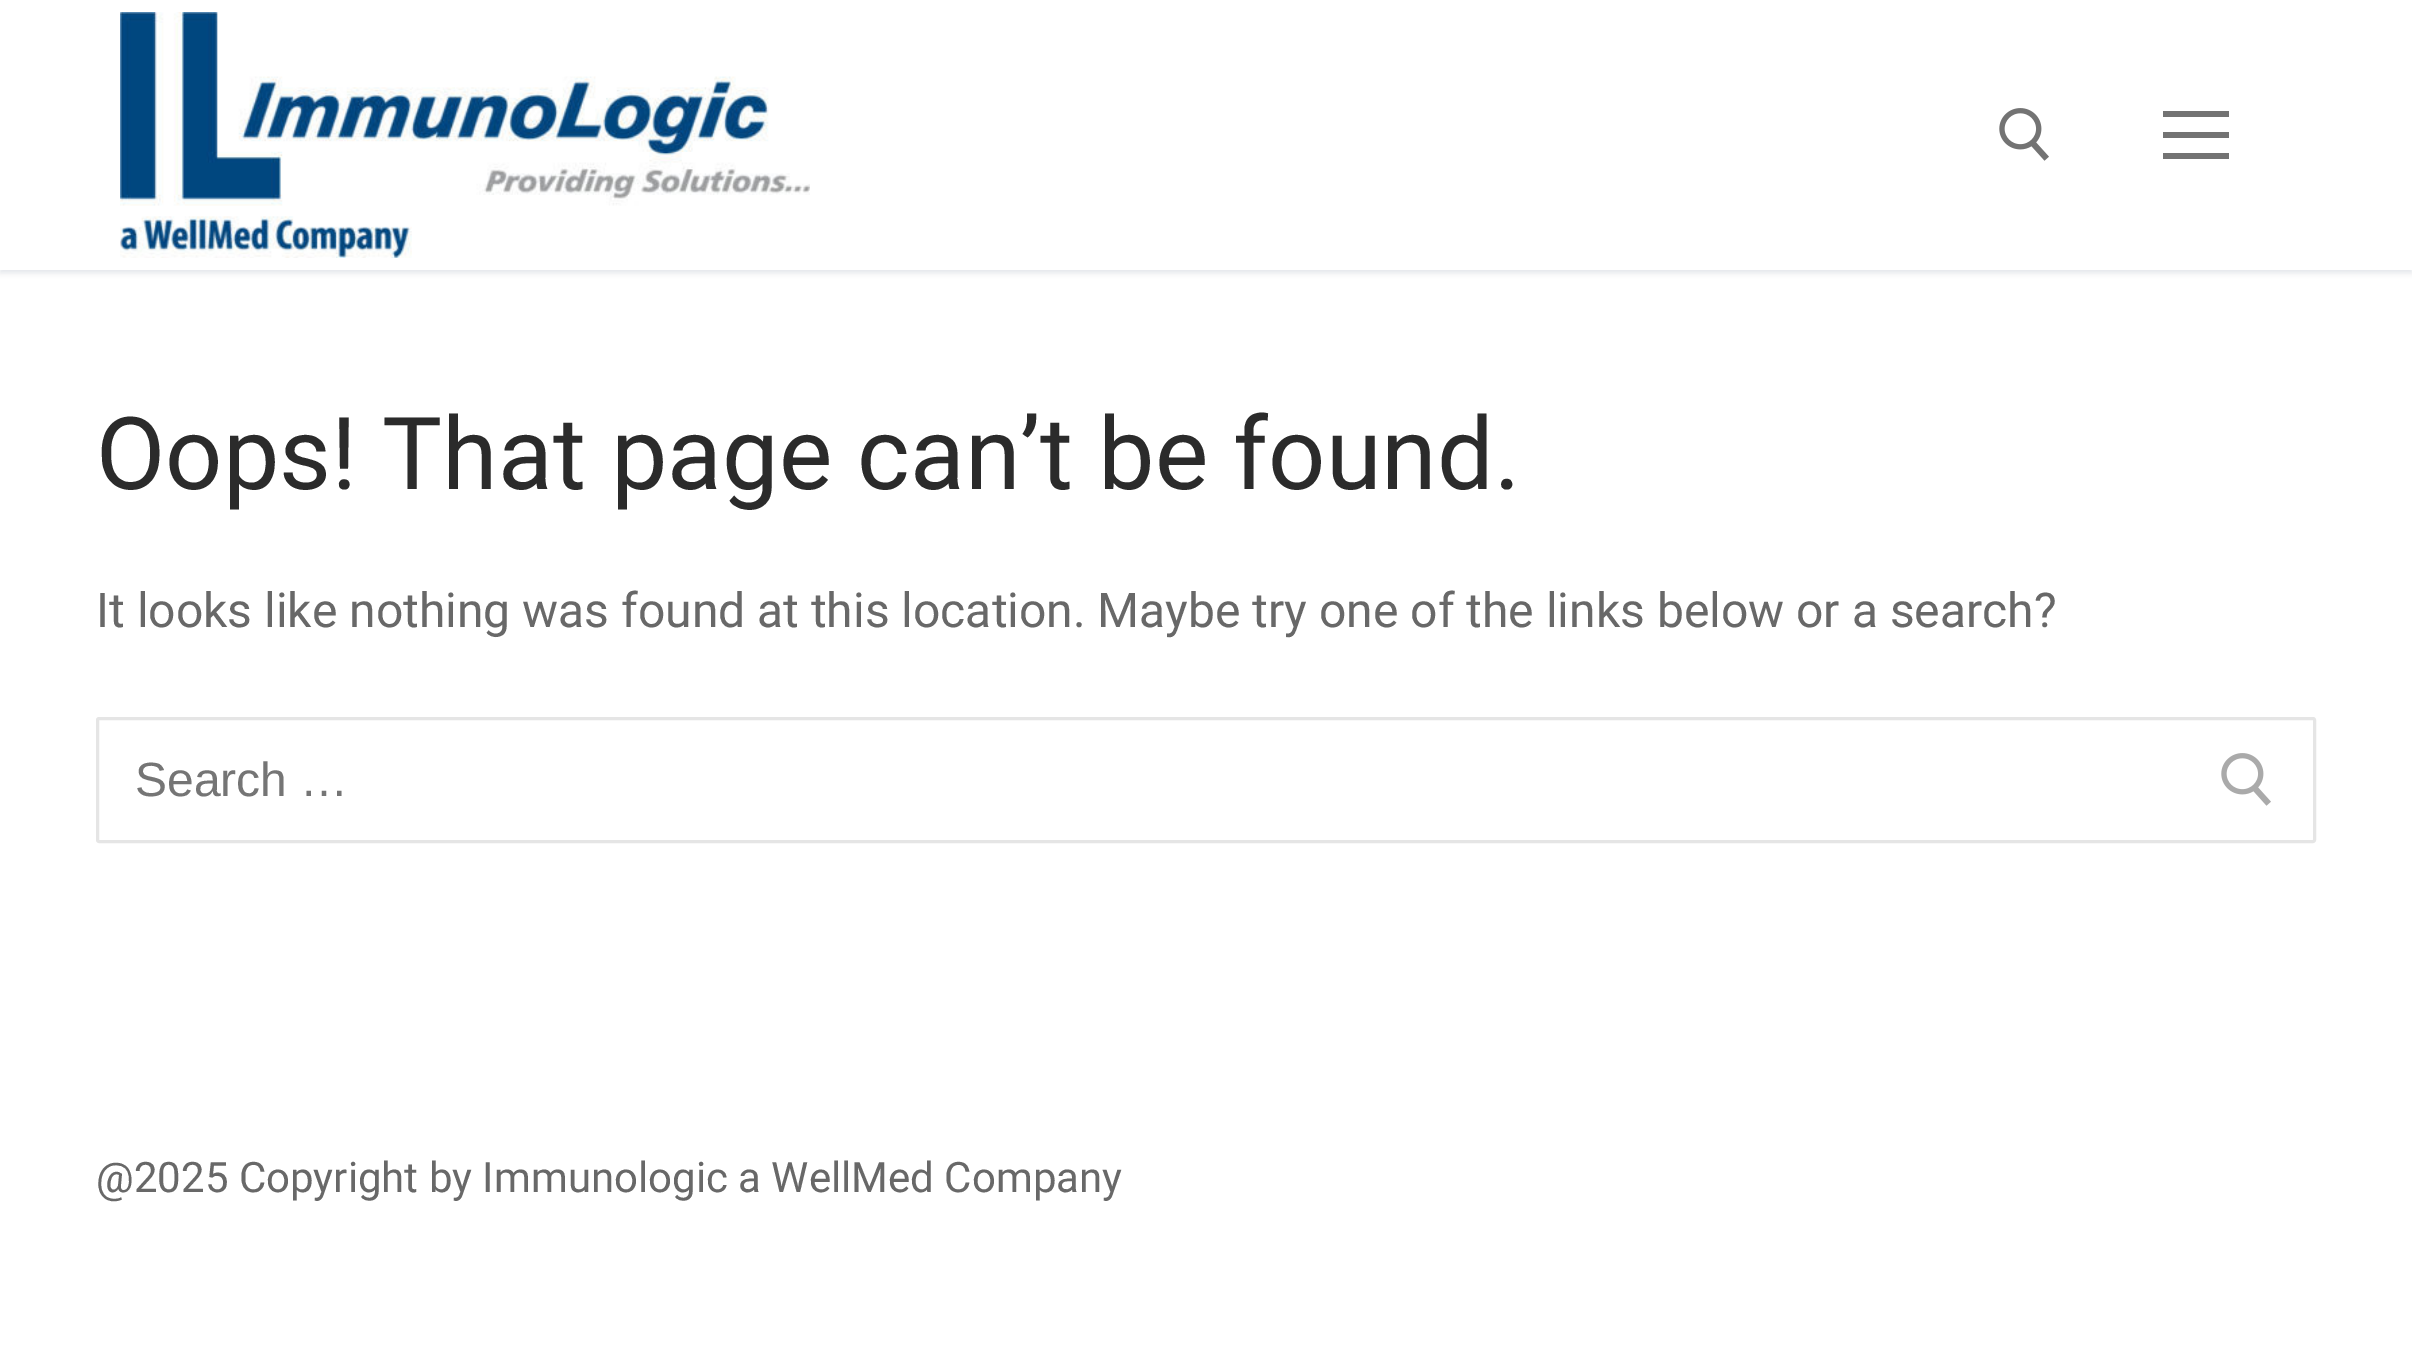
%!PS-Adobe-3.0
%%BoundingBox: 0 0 2412 1365
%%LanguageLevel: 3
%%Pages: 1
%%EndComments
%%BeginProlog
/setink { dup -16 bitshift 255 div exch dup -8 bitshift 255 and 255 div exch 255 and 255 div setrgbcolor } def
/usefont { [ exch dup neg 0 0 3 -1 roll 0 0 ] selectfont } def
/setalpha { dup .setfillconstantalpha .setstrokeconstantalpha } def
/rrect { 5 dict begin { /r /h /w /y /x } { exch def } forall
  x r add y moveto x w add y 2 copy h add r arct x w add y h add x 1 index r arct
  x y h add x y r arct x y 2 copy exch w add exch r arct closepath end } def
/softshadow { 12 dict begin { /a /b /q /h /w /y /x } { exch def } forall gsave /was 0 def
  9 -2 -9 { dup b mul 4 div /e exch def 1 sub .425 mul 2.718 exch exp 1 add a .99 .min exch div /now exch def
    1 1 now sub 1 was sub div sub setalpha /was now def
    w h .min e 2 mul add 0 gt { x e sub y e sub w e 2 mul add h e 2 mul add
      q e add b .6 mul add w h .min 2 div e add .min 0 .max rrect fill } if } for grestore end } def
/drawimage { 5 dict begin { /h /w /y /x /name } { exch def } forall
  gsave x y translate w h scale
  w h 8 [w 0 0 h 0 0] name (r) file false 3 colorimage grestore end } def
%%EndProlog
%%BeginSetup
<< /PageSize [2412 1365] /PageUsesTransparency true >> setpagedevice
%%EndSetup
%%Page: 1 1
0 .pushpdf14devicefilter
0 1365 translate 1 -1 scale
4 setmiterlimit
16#FFFFFF setink
0 0 2412 1365 rectfill
gsave
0 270 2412 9 rectclip
16#E1E5EA setink
0 3 2412 270 0 3 1 softshadow
grestore
(img1.raw) 120 12 690 246 drawimage
(img2.raw) 1999 108 50 53 drawimage
[
    [2163 132 66 6 16#737373]
    [2163 111 66 6 16#737373]
    [2163 153 66 6 16#737373]
] { aload pop setink rectfill } forall
/Roboto-Regular 100.75 usefont
16#2B2B2B setink
96 489 moveto (Oops! That page can’t be found.) show
/Roboto-Regular 48 usefont
16#686868 setink
96 627 moveto (It looks like nothing was found at this location. Maybe try one of the links below or a search?) show
16#E5E5E5 setink
3 setlinewidth
97.5 718.5 2217 123 1.5 rrect stroke
/LiberationSans-Regular 48 usefont
16#757575 setink
135 796 moveto (Search …) show
(img3.raw) 2221 753 50 53 drawimage
/Roboto-Regular 42 usefont
16#686868 setink
96 1192 moveto (@2025 Copyright by Immunologic a WellMed Company) show
.poppdf14devicefilter showpage
%%EOF
